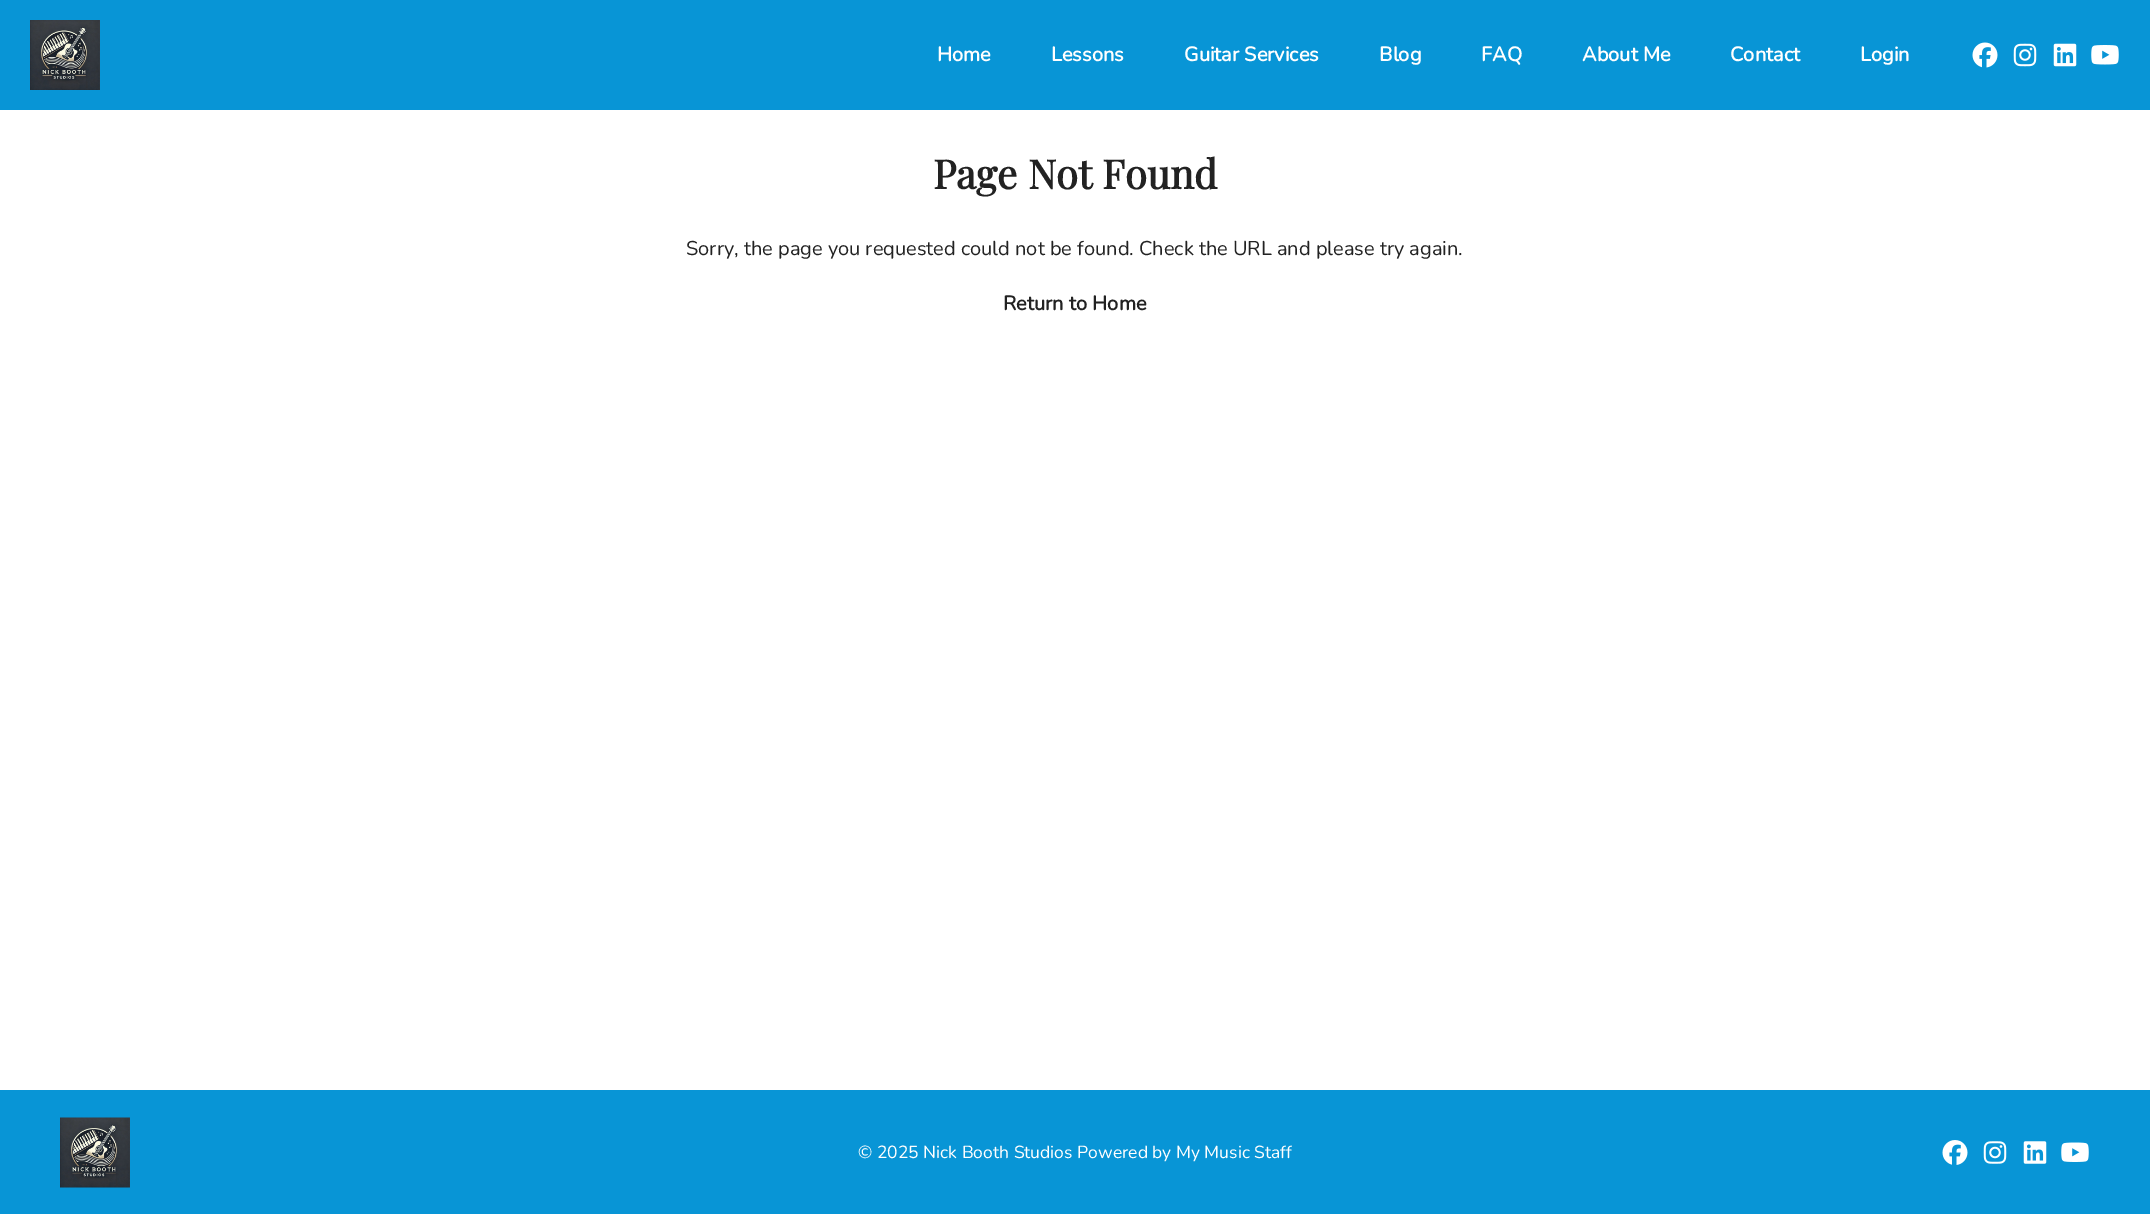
%!PS-Adobe-3.0
%%BoundingBox: 0 0 2150 1214
%%LanguageLevel: 3
%%Pages: 1
%%EndComments
%%BeginProlog
/setink { dup -16 bitshift 255 div exch dup -8 bitshift 255 and 255 div exch 255 and 255 div setrgbcolor } def
/usefont { [ exch dup neg 0 0 3 -1 roll 0 0 ] selectfont } def
/drawimage { 5 dict begin { /h /w /y /x /name } { exch def } forall
  gsave x y translate w h scale
  w h 8 [w 0 0 h 0 0] name (r) file false 3 colorimage grestore end } def
%%EndProlog
%%BeginSetup
<< /PageSize [2150 1214] >> setpagedevice
%%EndSetup
%%Page: 1 1
0 1214 translate 1 -1 scale
4 setmiterlimit
16#FFFFFF setink
0 0 2150 1214 rectfill
16#0895D6 setink
0 0 2150 110 rectfill
(img1.raw) 30 20 70 70 drawimage
/Nunito-Bold 20 usefont
16#FFFFFF setink
[
    [(Home) 937 61]
    [(Lessons) 1051 61]
    [(Guitar Services) 1184 61]
    [(Blog) 1379 61]
    [(FAQ) 1481 61]
    [(About Me) 1582 61]
    [(Contact) 1730 61]
    [(Login) 1860 61]
] { aload pop moveto show } forall
(img2.raw) 1972 42 26 26 drawimage
(img3.raw) 2013 43 24 24 drawimage
(img4.raw) 2053 43 24 24 drawimage
(img5.raw) 2091 45 28 20 drawimage
/PlayfairDisplay-Bold 40 usefont
16#222222 setink
933 189 moveto (Page Not Found) show
/Nunito-ExtraLight 20 usefont
686 255 moveto (Sorry, the page you requested could not be found. Check the URL and please try again.) show
/Nunito-Bold 20 usefont
1003 310 moveto (Return to Home) show
16#0895D6 setink
0 1090 2150 124 rectfill
(img6.raw) 60 1117 70 71 drawimage
/Nunito-ExtraLight 17.5 usefont
16#FFFFFF setink
858 1158 moveto (© 2025 Nick Booth Studios Powered by My Music Staff) show
(img7.raw) 1942 1140 26 25 drawimage
(img8.raw) 1983 1141 24 23 drawimage
(img9.raw) 2023 1141 24 23 drawimage
(img10.raw) 2061 1142 28 20 drawimage
showpage
%%EOF
